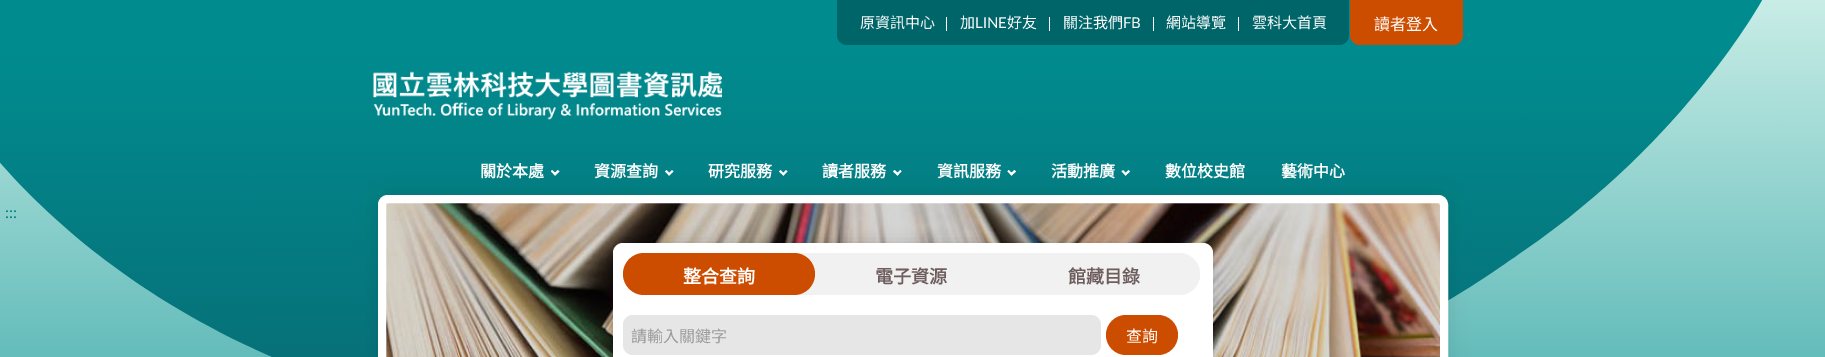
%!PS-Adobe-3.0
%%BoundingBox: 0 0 1825 357
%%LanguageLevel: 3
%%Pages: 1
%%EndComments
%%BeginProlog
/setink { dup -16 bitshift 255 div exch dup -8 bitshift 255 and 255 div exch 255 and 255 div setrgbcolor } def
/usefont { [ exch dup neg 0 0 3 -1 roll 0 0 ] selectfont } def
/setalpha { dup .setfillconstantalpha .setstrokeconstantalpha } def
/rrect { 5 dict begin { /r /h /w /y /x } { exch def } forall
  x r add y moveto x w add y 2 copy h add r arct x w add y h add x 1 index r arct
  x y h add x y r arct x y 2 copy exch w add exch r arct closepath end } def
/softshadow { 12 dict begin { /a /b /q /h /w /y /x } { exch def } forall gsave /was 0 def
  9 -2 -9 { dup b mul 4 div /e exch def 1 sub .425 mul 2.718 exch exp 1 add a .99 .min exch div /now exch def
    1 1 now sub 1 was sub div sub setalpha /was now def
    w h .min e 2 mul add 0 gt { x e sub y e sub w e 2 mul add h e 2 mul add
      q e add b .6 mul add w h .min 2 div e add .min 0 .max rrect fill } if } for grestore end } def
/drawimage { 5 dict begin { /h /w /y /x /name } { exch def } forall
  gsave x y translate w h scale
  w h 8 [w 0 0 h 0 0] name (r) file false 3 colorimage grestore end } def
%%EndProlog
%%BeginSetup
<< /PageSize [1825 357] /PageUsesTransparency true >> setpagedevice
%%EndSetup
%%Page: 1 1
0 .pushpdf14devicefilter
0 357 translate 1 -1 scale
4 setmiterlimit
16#FFFFFF setink
0 0 1825 357 rectfill
(img1.raw) 0 0 1825 357 drawimage
16#006568 setink
837 0 moveto 947 0 lineto 947 45 lineto 847 45 lineto 841.5 45 837 40.5 837 35 curveto closepath fill
/NotoSansCJKTC-Regular 15 usefont
16#FFFFFF setink
860 28 moveto (原資訊中心) show
16#006568 setink
947 0 292 45 rectfill
16#FFFFFF setink
946 17 1 14 rectfill
960 28 moveto (加) show
/Lato-Regular 15 usefont
975 28 moveto (LINE) show
/NotoSansCJKTC-Regular 15 usefont
1007 28 moveto (好友) show
1049 17 1 14 rectfill
1063 28 moveto (關注我們) show
/Lato-Regular 15 usefont
1123 28 moveto (FB) show
1153 17 1 14 rectfill
/NotoSansCJKTC-Regular 15 usefont
1166 28 moveto (網站導覽) show
16#006568 setink
1239 0 moveto 1349 0 lineto 1349 35 lineto 1349 40.5 1344.5 45 1339 45 curveto 1239 45 lineto closepath fill
16#FFFFFF setink
1238 17 1 14 rectfill
1252 28 moveto (雲科大首頁) show
16#CD4D00 setink
1350 0 moveto 1463 0 lineto 1463 35 lineto 1463 40.5 1458.5 45 1453 45 curveto 1360 45 lineto 1354.5 45 1350 40.5 1350 35 curveto closepath fill
/NotoSansCJKTC-Regular 16 usefont
16#FFFFFF setink
1374 30 moveto (讀者登入) show
(img2.raw) 372 71 350 49 drawimage
16#000000 setink
378 195 1070 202 10 10 0.1 softshadow
/NotoSansCJKTC-Bold 16 usefont
16#FFFFFF setink
480 177 moveto (關於本處) show
559.5 171.5 moveto 555 175.5 lineto 553.5 174 lineto 558 170 lineto closepath fill
556.5 174 moveto 555 175.5 lineto 551 171.5 lineto 552 170 lineto closepath fill
594 177 moveto (資源查詢) show
673.5 171.5 moveto 669 175.5 lineto 668 174 lineto 672 170 lineto closepath fill
670.5 174 moveto 669 175.5 lineto 665 171.5 lineto 666.5 170 lineto closepath fill
708 177 moveto (研究服務) show
787.5 171.5 moveto 783.5 175.5 lineto 782 174 lineto 786 170 lineto closepath fill
784.5 174 moveto 783.5 175.5 lineto 779 171.5 lineto 780.5 170 lineto closepath fill
822 177 moveto (讀者服務) show
901.5 171.5 moveto 897.5 175.5 lineto 896 174 lineto 900.5 170 lineto closepath fill
899 174 moveto 897.5 175.5 lineto 893 171.5 lineto 894.5 170 lineto closepath fill
937 177 moveto (資訊服務) show
1016 171.5 moveto 1011.5 175.5 lineto 1010 174 lineto 1014.5 170 lineto closepath fill
1013 174 moveto 1011.5 175.5 lineto 1007.5 171.5 lineto 1008.5 170 lineto closepath fill
1051 177 moveto (活動推廣) show
1130 171.5 moveto 1125.5 175.5 lineto 1124.5 174 lineto 1128.5 170 lineto closepath fill
1127 174 moveto 1125.5 175.5 lineto 1121.5 171.5 lineto 1123 170 lineto closepath fill
1165 177 moveto (數位校史館) show
1281 177 moveto (藝術中心) show
/Lato-Regular 16 usefont
16#007E81 setink
5 218 moveto (:::) show
(img3.raw) 386 203 1054 154 drawimage
16#FFFFFF setink
8 setlinewidth
388 199 moveto 1438 199 lineto 1441.5 199 1444 201.5 1444 205 curveto 1444 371 lineto 382 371 lineto 382 205 lineto 382 201.5 384.5 199 388 199 curveto closepath stroke
16#000000 setink
613 243 600 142 10 7.5 0.15 softshadow
16#FFFFFF setink
613 243 600 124 10 rrect fill
16#F1F1F1 setink
644 253 moveto 815 253 lineto 815 295 lineto 644 295 lineto 632.5 295 623 285.5 623 274 curveto 623 262.5 632.5 253 644 253 curveto closepath fill
16#CD4D00 setink
623 253 192 42 21 rrect fill
/NotoSansCJKTC-Bold 18 usefont
16#FFFFFF setink
683 283 moveto (整合查詢) show
16#F1F1F1 setink
815 253 193 42 rectfill
16#6E5D5D setink
875 283 moveto (電子資源) show
16#F1F1F1 setink
1008 253 moveto 1179 253 lineto 1190.5 253 1200 262.5 1200 274 curveto 1200 285.5 1190.5 295 1179 295 curveto 1008 295 lineto closepath fill
1008 253 192 42 21 rrect fill
16#6E5D5D setink
1068 283 moveto (館藏目錄) show
16#E6E6E6 setink
623 315 478 40 10 rrect fill
/NotoSansCJKTC-Regular 16 usefont
16#999999 setink
631 342 moveto (請輸入關鍵字) show
16#CD4D00 setink
1106 315 72 40 20 rrect fill
16#FFFFFF setink
1126 342 moveto (查詢) show
.poppdf14devicefilter showpage
%%EOF
